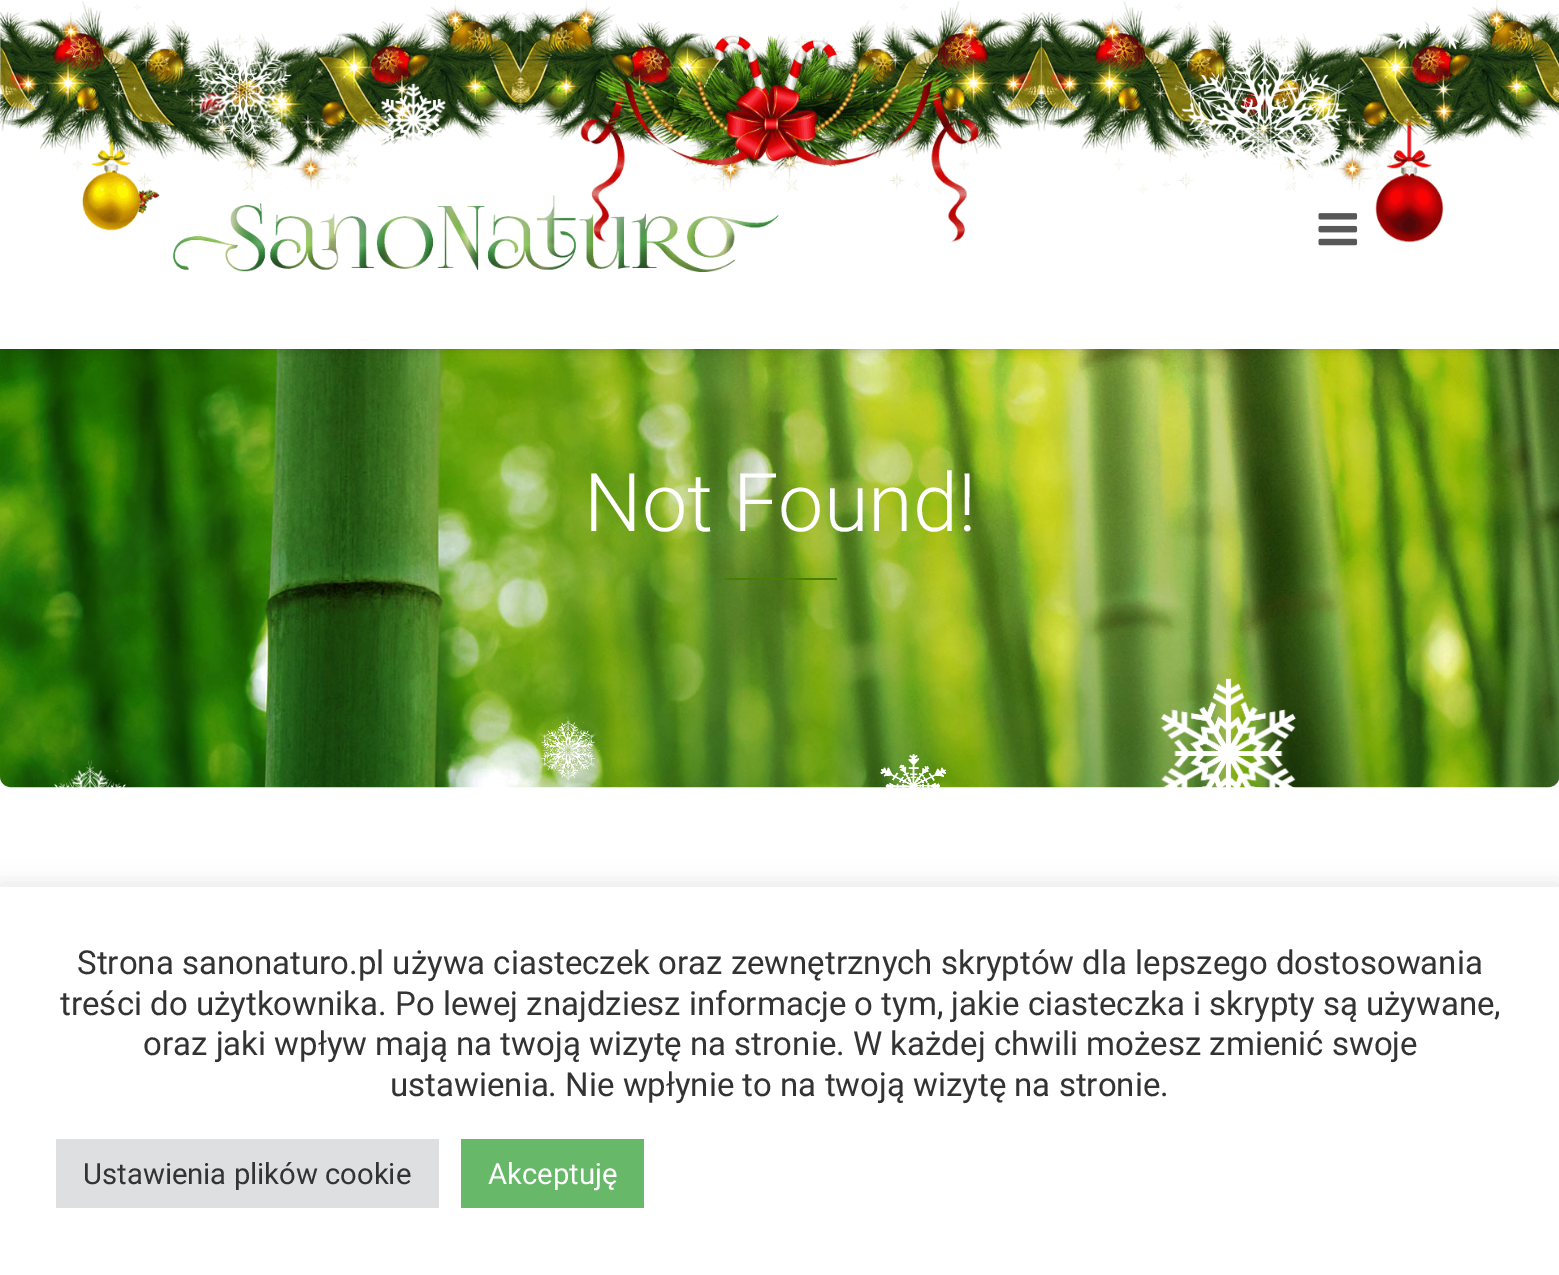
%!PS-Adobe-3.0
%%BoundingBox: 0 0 1559 1275
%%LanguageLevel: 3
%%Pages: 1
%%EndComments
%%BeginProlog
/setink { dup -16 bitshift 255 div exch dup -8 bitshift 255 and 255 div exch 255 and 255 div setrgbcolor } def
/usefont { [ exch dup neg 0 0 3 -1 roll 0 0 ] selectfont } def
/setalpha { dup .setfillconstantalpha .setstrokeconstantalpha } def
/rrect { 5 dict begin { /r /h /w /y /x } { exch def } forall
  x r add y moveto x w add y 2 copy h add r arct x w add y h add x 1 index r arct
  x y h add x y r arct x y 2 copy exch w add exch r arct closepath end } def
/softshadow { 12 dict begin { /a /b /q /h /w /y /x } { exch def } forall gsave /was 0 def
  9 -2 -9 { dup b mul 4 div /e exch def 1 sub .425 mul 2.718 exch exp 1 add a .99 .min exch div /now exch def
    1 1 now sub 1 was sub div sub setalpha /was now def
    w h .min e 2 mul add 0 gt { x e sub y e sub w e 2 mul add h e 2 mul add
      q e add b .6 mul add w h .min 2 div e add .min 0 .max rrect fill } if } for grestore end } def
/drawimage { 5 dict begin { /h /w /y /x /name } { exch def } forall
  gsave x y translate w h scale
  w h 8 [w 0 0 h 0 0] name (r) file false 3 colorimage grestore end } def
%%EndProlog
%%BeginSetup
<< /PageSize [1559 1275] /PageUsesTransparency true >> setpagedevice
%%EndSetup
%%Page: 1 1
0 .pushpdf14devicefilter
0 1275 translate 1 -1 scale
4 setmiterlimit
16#FFFFFF setink
0 0 1559 1275 rectfill
(img9.raw) 0 349 1559 439 drawimage
16#000000 setink
0 110 1559 239 0 5.5 0.2 softshadow
16#FFFFFF setink
0 110 1559 239 rectfill
(img6.raw) 138 188 22 26 drawimage
(img7.raw) 173 195 606 77 drawimage
(img8.raw) 1318 213 40 33 drawimage
(img1.raw) 0 0 1559 243 drawimage
(img2.raw) 186 37 115 114 drawimage
(img3.raw) 380 83 66 60 drawimage
(img4.raw) 1166 43 197 148 drawimage
(img5.raw) 1395 21 65 29 drawimage
/Roboto-Light 81 usefont
584 531 moveto (Not Found!) show
16#4A7E00 setink
725 578 112 2 rectfill
(img10.raw) 54 760 72 28 drawimage
(img11.raw) 536 716 64 68 drawimage
(img12.raw) 880 754 66 34 drawimage
(img13.raw) 1160 678 137 110 drawimage
16#ACABAB setink
0 884 1559 390 0 11 0.3 softshadow
16#FFFFFF setink
0 887 1559 388 rectfill
/Roboto-Regular 33 usefont
16#333333 setink
[
    [(Strona sanonaturo.pl używa ciasteczek oraz zewnętrznych skryptów dla lepszego dostosowania) 77 974]
    [(treści do użytkownika. Po lewej znajdziesz informacje o tym, jakie ciasteczka i skrypty są używane,) 60 1015]
    [(oraz jaki wpływ mają na twoją wizytę na stronie. W każdej chwili możesz zmienić swoje) 143 1055]
    [(ustawienia. Nie wpłynie to na twoją wizytę na stronie.) 390 1096]
] { aload pop moveto show } forall
16#DEDFE0 setink
56 1139 383 69 rectfill
/Roboto-Regular 29.25 usefont
16#333333 setink
83 1184 moveto (Ustawienia plików cookie) show
16#67B868 setink
461 1139 183 69 rectfill
16#FFFFFF setink
488 1184 moveto (Akceptuję) show
.poppdf14devicefilter showpage
%%EOF
